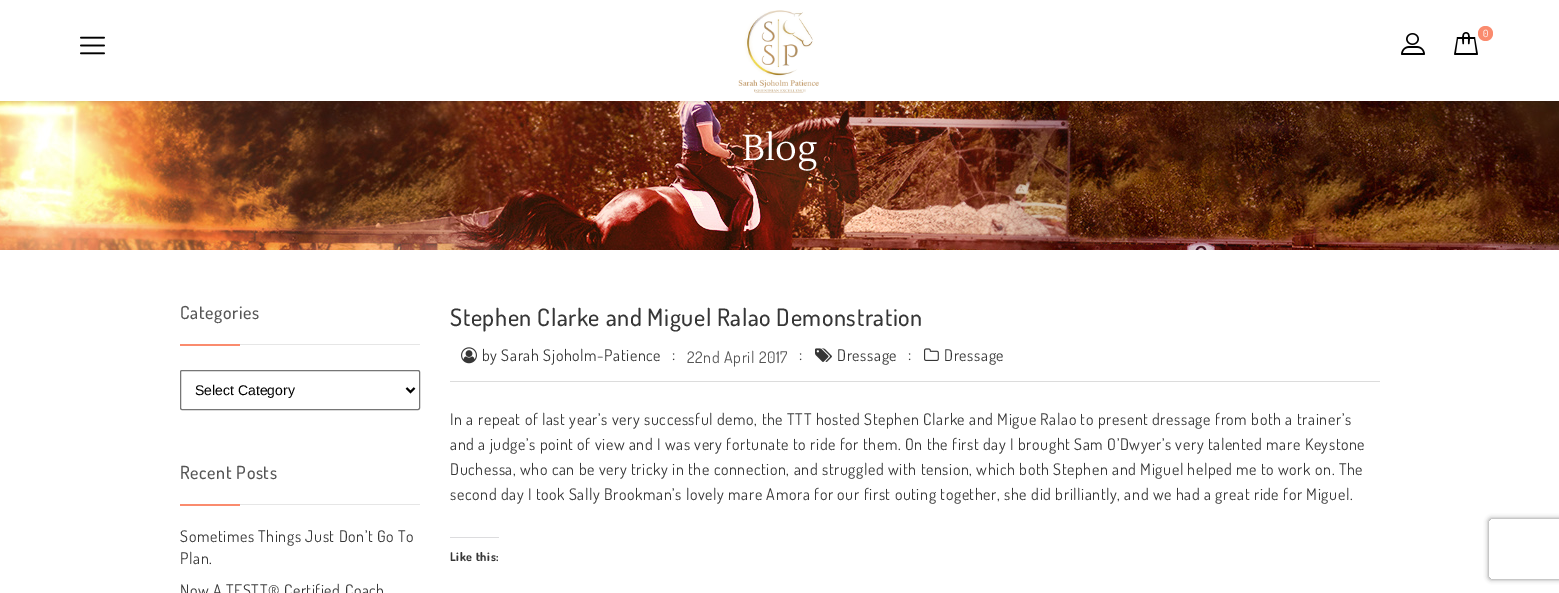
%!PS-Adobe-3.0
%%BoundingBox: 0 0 1559 593
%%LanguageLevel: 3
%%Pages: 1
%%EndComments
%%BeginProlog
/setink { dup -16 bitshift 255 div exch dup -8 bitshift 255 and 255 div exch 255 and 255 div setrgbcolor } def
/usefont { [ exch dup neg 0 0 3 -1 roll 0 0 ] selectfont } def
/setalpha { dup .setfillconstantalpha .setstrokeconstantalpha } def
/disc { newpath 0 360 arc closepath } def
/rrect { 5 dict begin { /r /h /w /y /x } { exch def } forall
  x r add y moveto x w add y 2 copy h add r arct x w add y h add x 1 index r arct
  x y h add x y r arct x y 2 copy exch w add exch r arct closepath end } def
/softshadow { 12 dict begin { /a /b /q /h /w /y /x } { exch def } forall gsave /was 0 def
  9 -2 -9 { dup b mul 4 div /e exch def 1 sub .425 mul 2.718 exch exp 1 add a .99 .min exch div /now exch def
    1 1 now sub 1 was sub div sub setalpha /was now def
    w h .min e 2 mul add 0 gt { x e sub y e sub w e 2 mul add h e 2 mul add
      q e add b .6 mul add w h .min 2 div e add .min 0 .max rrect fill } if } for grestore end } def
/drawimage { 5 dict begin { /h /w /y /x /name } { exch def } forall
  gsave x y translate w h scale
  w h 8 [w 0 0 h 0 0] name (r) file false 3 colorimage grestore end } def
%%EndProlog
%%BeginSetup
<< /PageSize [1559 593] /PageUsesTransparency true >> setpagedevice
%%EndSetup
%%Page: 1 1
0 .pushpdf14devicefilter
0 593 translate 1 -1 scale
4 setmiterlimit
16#FFFFFF setink
0 0 1559 593 rectfill
(img5.raw) 0 101 1559 149 drawimage
16#000000 setink
0 1 1559 101 0 1.5 0.1 softshadow
16#FFFFFF setink
0 0 1559 101 rectfill
(img1.raw) 738 10 81 83 drawimage
(img2.raw) 1401 33 24 22 drawimage
(img3.raw) 1454 32 24 23 drawimage
16#FA8B6E setink
1485.5 33.5 7.5 disc fill
/Dosis-Regular 10 usefont
16#FFFFFF setink
1483 37 moveto 0.6 0 (0) ashow
(img4.raw) 80 36 25 19 drawimage
/Lustria-Regular 36 usefont
742 160 moveto (Blog) show
16#E6E6E6 setink
240 344 180 1 rectfill
/Dosis-Medium 18 usefont
16#555555 setink
180 319 moveto 0.6 0 (Categories) ashow
16#FA8B6E setink
180 344 60 2 rectfill
16#767676 setink
180.5 370.5 239 39 1.5 rrect stroke
16#000000 setink
2 setlinewidth
406.5 388 moveto 410.5 392 lineto 414.5 388 lineto stroke
/LiberationSans-Regular 14 usefont
195 395 moveto (Select Category) show
16#E6E6E6 setink
240 504 180 1 rectfill
/Dosis-Medium 18 usefont
16#555555 setink
180 479 moveto 0.6 0 (Recent Posts) ashow
16#FA8B6E setink
180 504 60 2 rectfill
/Dosis-Regular 16 usefont
16#363636 setink
180 542 moveto 0.6 0 (Sometimes Things Just Don’t Go To) ashow
180 564 moveto 0.6 0 (Plan.) ashow
180 596 moveto 0.6 0 (Now A TESTT® Certified Coach) ashow
/Dosis-Medium 24 usefont
450 326 moveto 0.6 0 (Stephen Clarke and Miguel Ralao Demonstration) ashow
16#DCDCDC setink
450 381 930 1 rectfill
(img6.raw) 461 347 16 17 drawimage
/Dosis-Regular 16 usefont
16#363636 setink
482 361 moveto 0.6 0 (by Sarah Sjoholm-Patience) ashow
672 360 moveto 0.6 0 (:) ashow
16#555555 setink
687 363 moveto 0.6 0 (22nd April 2017) ashow
16#363636 setink
799 360 moveto 0.6 0 (:) ashow
(img7.raw) 815 348 17 14 drawimage
837 361 moveto 0.6 0 (Dressage) ashow
908 360 moveto 0.6 0 (:) ashow
(img8.raw) 924 348 15 13 drawimage
944 361 moveto 0.6 0 (Dressage) ashow
450 425 moveto 0.6 0 (In a repeat of last year’s very successful demo, the TTT hosted Stephen Clarke and Migue Ralao to present dressage from both a trainer’s) ashow
450 450 moveto 0.6 0 (and a judge’s point of view and I was very fortunate to ride for them. On the first day I brought Sam O’Dwyer’s very talented mare Keystone) ashow
450 475 moveto 0.6 0 (Duchessa, who can be very tricky in the connection, and struggled with tension, which both Stephen and Miguel helped me to work on. The) ashow
450 500 moveto 0.6 0 (second day I took Sally Brookman’s lovely mare Amora for our first outing together, she did brilliantly, and we had a great ride for Miguel.) ashow
16#DCDCDE setink
450 537 49 1 rectfill
/Dosis-Bold 12 usefont
16#363636 setink
450 561 moveto 0.6 0 (Like this:) ashow
gsave
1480 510 moveto 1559 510 lineto 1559 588 lineto 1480 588 lineto closepath 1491 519 moveto 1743 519 lineto 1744 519 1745 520 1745 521 curveto 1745 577 lineto 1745 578 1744 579 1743 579 curveto 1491 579 lineto 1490 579 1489 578 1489 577 curveto 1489 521 lineto 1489 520 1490 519 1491 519 curveto closepath eoclip newpath
16#808080 setink
1489 519 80 60 2 2.5 1 softshadow
grestore
.poppdf14devicefilter showpage
%%EOF
